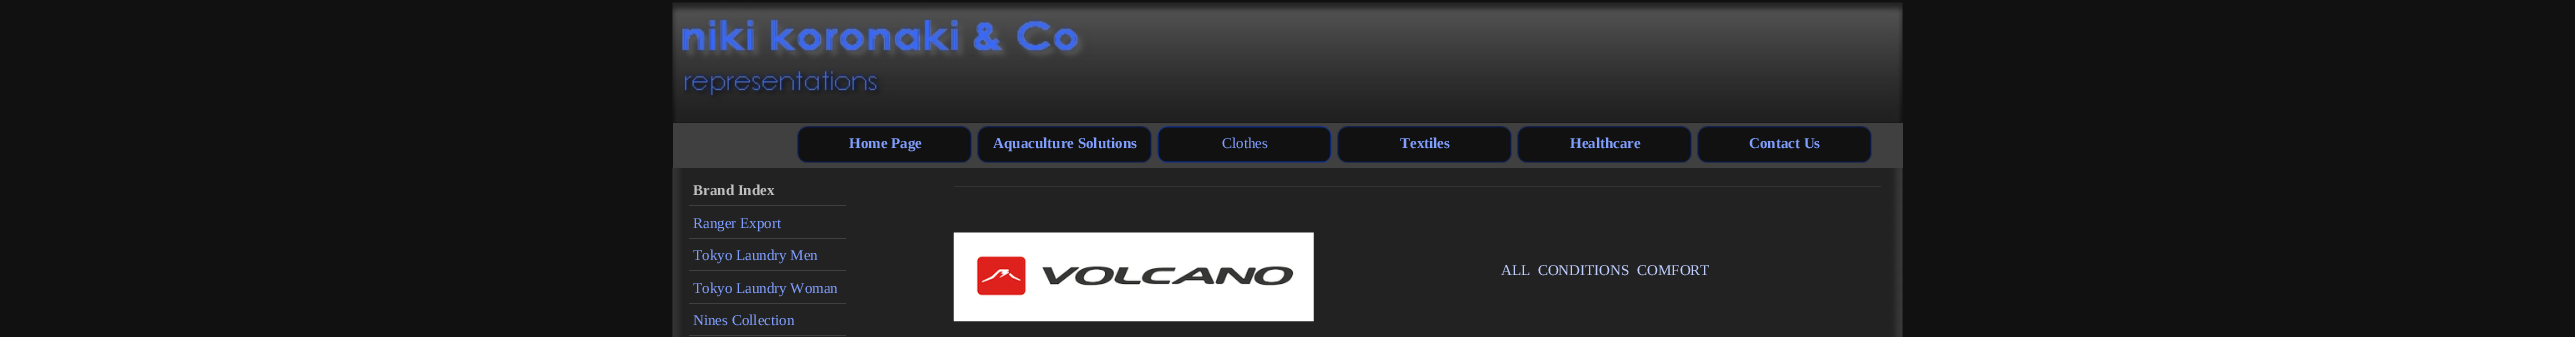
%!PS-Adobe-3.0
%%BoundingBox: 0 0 2575 337
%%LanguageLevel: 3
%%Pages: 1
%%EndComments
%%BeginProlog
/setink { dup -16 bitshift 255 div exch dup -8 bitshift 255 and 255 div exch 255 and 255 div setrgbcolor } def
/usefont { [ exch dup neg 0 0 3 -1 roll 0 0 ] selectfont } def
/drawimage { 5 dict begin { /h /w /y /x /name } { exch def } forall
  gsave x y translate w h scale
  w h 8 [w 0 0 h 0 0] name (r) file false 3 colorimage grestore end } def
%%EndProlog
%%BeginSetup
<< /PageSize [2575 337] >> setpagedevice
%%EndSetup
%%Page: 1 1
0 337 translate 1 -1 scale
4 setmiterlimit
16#111111 setink
0 0 2575 337 rectfill
(img1.raw) 672 2 1231 121 drawimage
(img6.raw) 672 167 1231 170 drawimage
16#404040 setink
673 123 1230 45 rectfill
(img2.raw) 797 126 175 37 drawimage
/LiberationSerif-Bold 15 usefont
16#809FFF setink
849 148 moveto (Home Page) show
(img3.raw) 977 126 175 37 drawimage
993 148 moveto (Aquaculture Solutions) show
(img4.raw) 1157 126 175 37 drawimage
/LiberationSerif-Regular 15 usefont
1222 148 moveto (Clothes) show
(img3.raw) 1337 126 175 37 drawimage
/LiberationSerif-Bold 15 usefont
1400 148 moveto (Textiles) show
(img5.raw) 1517 126 175 37 drawimage
1570 148 moveto (Healthcare) show
(img2.raw) 1697 126 175 37 drawimage
1749 148 moveto (Contact Us) show
16#404040 setink
689 205 157 1 rectfill
16#C0C0C0 setink
693 195 moveto (Brand Index) show
16#404040 setink
689 238 157 1 rectfill
/LiberationSerif-Regular 15 usefont
16#809FFF setink
693 228 moveto (Ranger Export) show
16#404040 setink
689 270 157 1 rectfill
16#809FFF setink
693 260 moveto (Tokyo Laundry Men) show
16#404040 setink
689 303 157 1 rectfill
16#809FFF setink
693 293 moveto (Tokyo Laundry Woman) show
16#404040 setink
689 335 157 1 rectfill
16#809FFF setink
693 325 moveto (Nines Collection) show
16#333333 setink
954 186 927 1 rectfill
(img7.raw) 953 232 361 90 drawimage
16#BFCFFF setink
1501 275 moveto (ALL  CONDITIONS) show
1637 275 moveto (COMFORT) show
showpage
%%EOF
